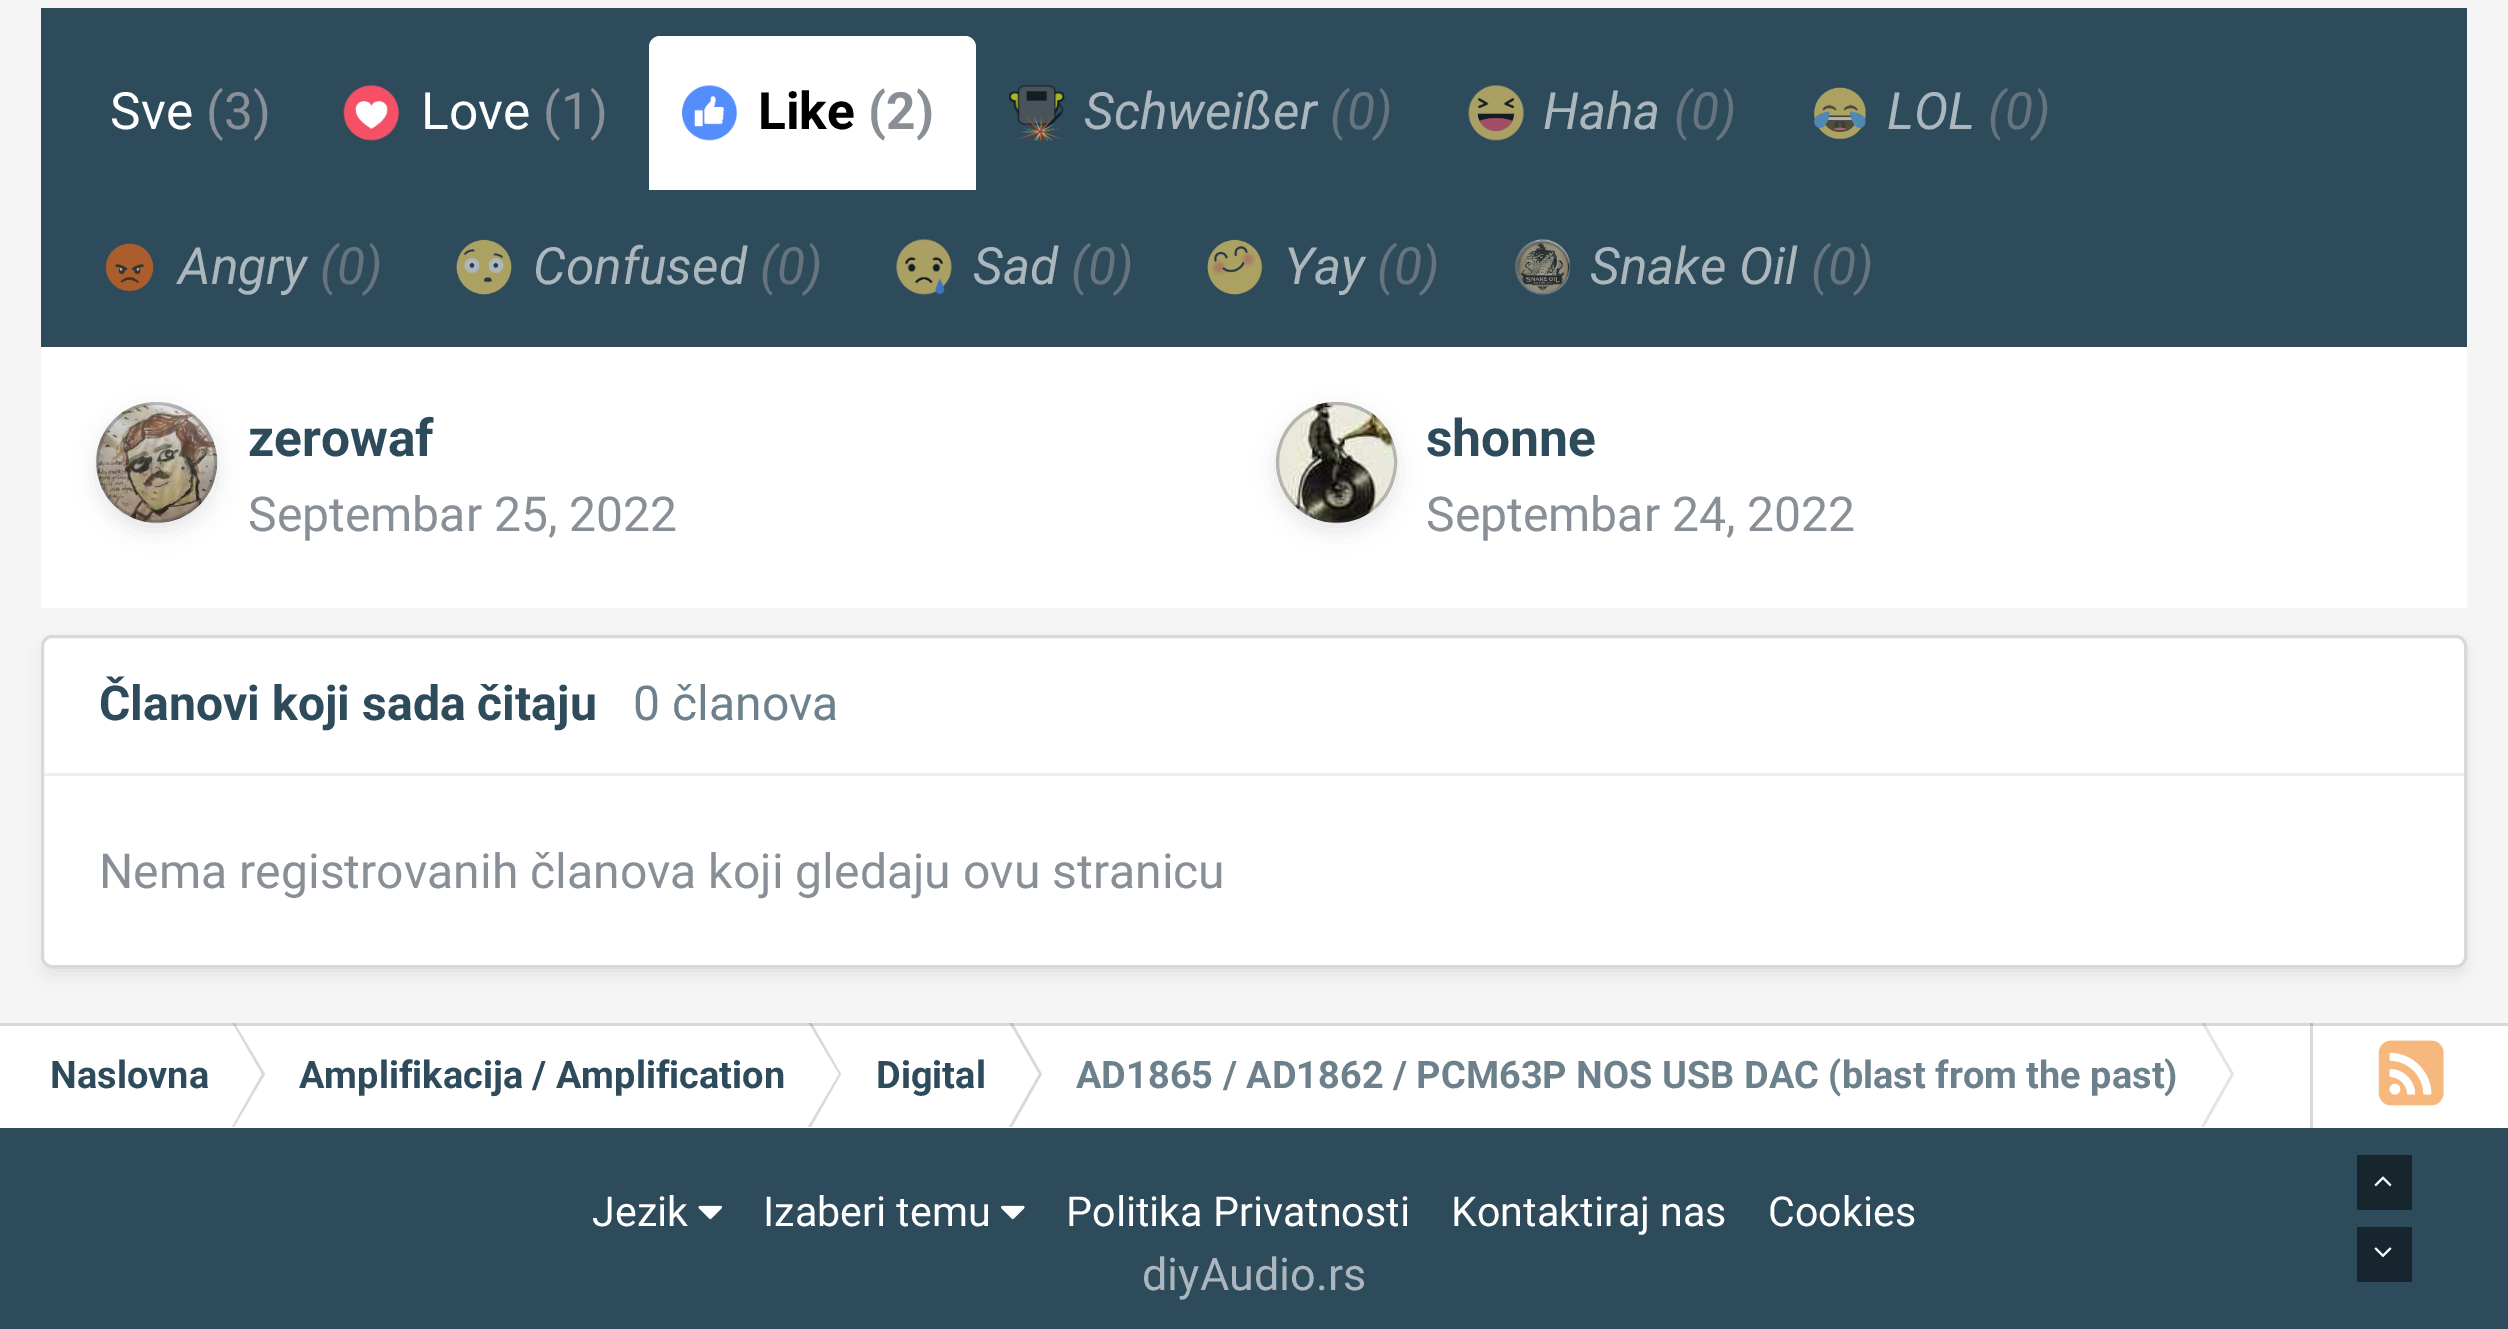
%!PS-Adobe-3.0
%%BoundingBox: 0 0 2508 1329
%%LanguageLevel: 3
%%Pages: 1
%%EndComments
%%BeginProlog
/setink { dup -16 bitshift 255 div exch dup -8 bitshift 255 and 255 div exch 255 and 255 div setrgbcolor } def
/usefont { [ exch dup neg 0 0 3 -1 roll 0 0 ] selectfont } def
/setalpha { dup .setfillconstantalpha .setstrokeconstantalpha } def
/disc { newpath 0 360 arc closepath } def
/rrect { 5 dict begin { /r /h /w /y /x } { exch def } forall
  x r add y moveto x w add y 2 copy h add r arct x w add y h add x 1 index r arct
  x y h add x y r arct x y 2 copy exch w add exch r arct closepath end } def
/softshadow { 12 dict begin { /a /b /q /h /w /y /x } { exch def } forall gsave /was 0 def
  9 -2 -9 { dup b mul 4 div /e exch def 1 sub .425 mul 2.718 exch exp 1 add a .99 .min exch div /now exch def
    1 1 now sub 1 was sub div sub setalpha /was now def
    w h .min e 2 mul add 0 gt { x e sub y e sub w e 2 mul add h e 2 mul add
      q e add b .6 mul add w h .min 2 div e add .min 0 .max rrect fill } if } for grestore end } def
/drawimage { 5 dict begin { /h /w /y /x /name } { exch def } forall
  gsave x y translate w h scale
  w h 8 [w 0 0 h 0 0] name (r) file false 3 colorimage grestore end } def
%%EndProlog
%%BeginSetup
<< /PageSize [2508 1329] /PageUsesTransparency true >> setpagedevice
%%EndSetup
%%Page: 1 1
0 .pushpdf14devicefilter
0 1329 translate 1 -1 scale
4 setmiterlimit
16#2E4B5B setink
0 0 2508 1329 rectfill
16#F5F5F5 setink
0 0 2508 1023 rectfill
16#2E4B5B setink
41 8 2426 339 rectfill
/Roboto-Regular 51.5 usefont
16#FFFFFF setink
110 129 moveto (Sve) show
16#898F97 setink
206 129 moveto (\(3\)) show
(img1.raw) 343 85 56 56 drawimage
16#FFFFFF setink
421 129 moveto (Love) show
16#898F97 setink
543 129 moveto (\(1\)) show
16#FFFFFF setink
660 36 moveto 965 36 lineto 971 36 976 41 976 47 curveto 976 190 lineto 649 190 lineto 649 47 lineto 649 41 654 36 660 36 curveto closepath fill
(img2.raw) 682 85 55 56 drawimage
/Roboto-Bold 51.5 usefont
16#000000 setink
758 129 moveto (Like) show
16#898F97 setink
868 129 moveto (\(2\)) show
(img3.raw) 1009 85 56 56 drawimage
/Roboto-Italic 51.5 usefont
16#ABB7BD setink
1084 129 moveto (Schweißer) show
16#65747F setink
1330 129 moveto (\(0\)) show
(img4.raw) 1468 85 56 56 drawimage
16#ABB7BD setink
1543 129 moveto (Haha) show
16#65747F setink
1674 129 moveto (\(0\)) show
(img5.raw) 1813 87 53 52 drawimage
16#ABB7BD setink
1887 129 moveto (LOL) show
16#65747F setink
1988 129 moveto (\(0\)) show
(img6.raw) 105 243 49 49 drawimage
16#ABB7BD setink
178 284 moveto (Angry) show
16#65747F setink
320 284 moveto (\(0\)) show
(img7.raw) 456 239 56 56 drawimage
16#ABB7BD setink
533 284 moveto (Confused) show
16#65747F setink
760 284 moveto (\(0\)) show
(img8.raw) 896 239 56 56 drawimage
16#ABB7BD setink
973 284 moveto (Sad) show
16#65747F setink
1071 284 moveto (\(0\)) show
(img9.raw) 1207 239 56 56 drawimage
16#ABB7BD setink
1284 284 moveto (Yay) show
16#65747F setink
1377 284 moveto (\(0\)) show
(img10.raw) 1515 239 56 56 drawimage
16#ABB7BD setink
1590 284 moveto (Snake Oil) show
16#65747F setink
1811 284 moveto (\(0\)) show
16#FFFFFF setink
41 347 2426 261 rectfill
(img11.raw) 96 402 122 121 drawimage
gsave
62 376 moveto 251 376 lineto 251 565 lineto 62 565 lineto closepath 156.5 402 moveto 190 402 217 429 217 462.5 curveto 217 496 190 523 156.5 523 curveto 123 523 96 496 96 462.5 curveto 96 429 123 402 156.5 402 curveto closepath eoclip newpath
16#000000 setink
96 410 121 121 60.5 11 0.1 softshadow
grestore
0.3 setalpha
16#3B4043 setink
3 setlinewidth
156.5 462.5 59 disc stroke
/Roboto-Bold 51.5 usefont
1 setalpha
16#2E4B5B setink
248 456 moveto (zerowaf) show
/Roboto-Regular 48.1 usefont
16#898F97 setink
248 531 moveto (Septembar 25, 2022) show
(img12.raw) 1276 402 121 121 drawimage
gsave
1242 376 moveto 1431 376 lineto 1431 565 lineto 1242 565 lineto closepath 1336.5 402 moveto 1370 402 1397 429 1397 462.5 curveto 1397 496 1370 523 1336.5 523 curveto 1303 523 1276 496 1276 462.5 curveto 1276 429 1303 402 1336.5 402 curveto closepath eoclip newpath
16#000000 setink
1276 410 121 121 60.5 11 0.1 softshadow
grestore
0.3 setalpha
16#3B4043 setink
1336.5 462.5 59 disc stroke
/Roboto-Bold 51.5 usefont
1 setalpha
16#2E4B5B setink
1426 456 moveto (shonne) show
/Roboto-Regular 48.1 usefont
16#898F97 setink
1426 531 moveto (Septembar 24, 2022) show
16#000000 setink
44 646 2420 328 8 8 0.08 softshadow
16#FFFFFF setink
41 635 2426 333 11 rrect fill
0.2 setalpha
16#3B4043 setink
42.5 636.5 2423 330 9.5 rrect stroke
1 setalpha
16#EDEEEF setink
44 773 2420 3 rectfill
/Roboto-Bold 48.1 usefont
16#2E4B5B setink
99 720 moveto (Članovi koji sada čitaju) show
/Roboto-Regular 48.1 usefont
16#6D818C setink
633 720 moveto (0 članova) show
16#898F97 setink
99 888 moveto (Nema registrovanih članova koji gledaju ovu stranicu) show
16#FFFFFF setink
0 1023 2508 105 rectfill
gsave
0 1023 2310 105 rectclip
16#D8D9D9 setink
232 1022 moveto 234 1022 lineto 265 1074 lineto 262 1074 lineto closepath fill
808 1022 moveto 811 1022 lineto 841 1074 lineto 839 1074 lineto closepath fill
1009 1022 moveto 1012 1022 lineto 1042 1074 lineto 1039 1074 lineto closepath fill
16#E4E4E5 setink
2201 1022 moveto 2204 1022 lineto 2234 1074 lineto 2231 1074 lineto closepath fill
grestore
16#D8D9D9 setink
2310 1023 3 105 rectfill
0.2 setalpha
16#3B4043 setink
0 1023 2508 3 rectfill
/Roboto-Bold 37.95 usefont
1 setalpha
16#2E4B5B setink
50 1088 moveto (Naslovna) show
16#D8D9D9 setink
232 1127 moveto 234 1127 lineto 265 1074 lineto 262 1074 lineto closepath fill
16#2E4B5B setink
299 1088 moveto (Amplifikacija / Amplification) show
16#D8D9D9 setink
808 1127 moveto 811 1127 lineto 841 1074 lineto 839 1074 lineto closepath fill
16#2E4B5B setink
876 1088 moveto (Digital) show
16#D8D9D9 setink
1009 1127 moveto 1012 1127 lineto 1042 1074 lineto 1039 1074 lineto closepath fill
16#6D818C setink
1076 1088 moveto (AD1865 / AD1862 / PCM63P NOS USB DAC \(blast from the past\)) show
16#E4E4E5 setink
2201 1127 moveto 2204 1127 lineto 2234 1074 lineto 2231 1074 lineto closepath fill
(img13.raw) 2378 1040 66 66 drawimage
/Roboto-Regular 41.25 usefont
16#FFFFFF setink
592 1226 moveto (Jezik) show
(img14.raw) 698 1205 25 15 drawimage
763 1226 moveto (Izaberi temu) show
(img15.raw) 1001 1205 24 15 drawimage
[
    [(Politika Privatnosti) 1066 1226]
    [(Kontaktiraj nas) 1451 1226]
    [(Cookies) 1768 1226]
] { aload pop moveto show } forall
/Roboto-Regular 45 usefont
16#ABB7BD setink
1142 1290 moveto (diyAudio.rs) show
16#17252D setink
2357 1155 55 55 rectfill
(img16.raw) 2374 1176 18 11 drawimage
16#17262E setink
2357 1227 55 55 rectfill
(img17.raw) 2374 1247 18 11 drawimage
.poppdf14devicefilter showpage
%%EOF
